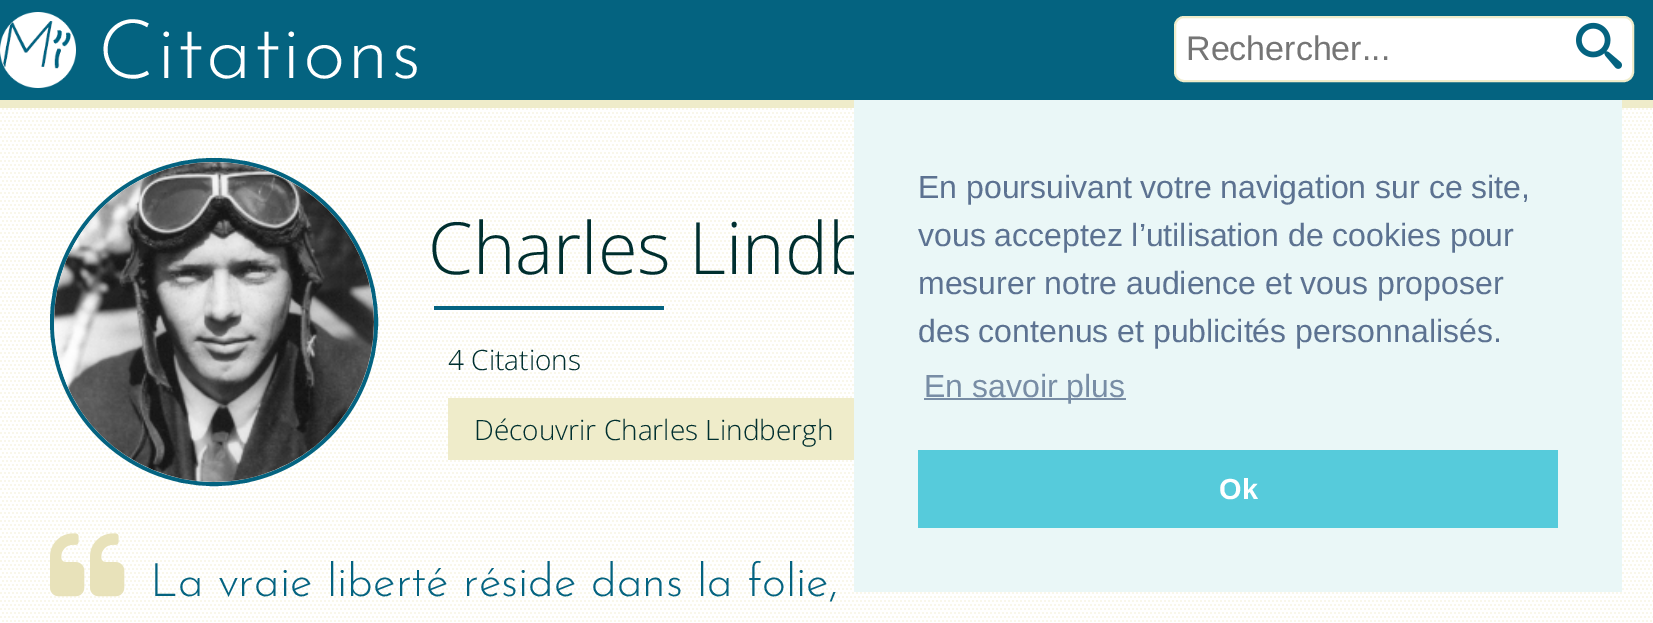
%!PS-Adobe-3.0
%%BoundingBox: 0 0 1653 623
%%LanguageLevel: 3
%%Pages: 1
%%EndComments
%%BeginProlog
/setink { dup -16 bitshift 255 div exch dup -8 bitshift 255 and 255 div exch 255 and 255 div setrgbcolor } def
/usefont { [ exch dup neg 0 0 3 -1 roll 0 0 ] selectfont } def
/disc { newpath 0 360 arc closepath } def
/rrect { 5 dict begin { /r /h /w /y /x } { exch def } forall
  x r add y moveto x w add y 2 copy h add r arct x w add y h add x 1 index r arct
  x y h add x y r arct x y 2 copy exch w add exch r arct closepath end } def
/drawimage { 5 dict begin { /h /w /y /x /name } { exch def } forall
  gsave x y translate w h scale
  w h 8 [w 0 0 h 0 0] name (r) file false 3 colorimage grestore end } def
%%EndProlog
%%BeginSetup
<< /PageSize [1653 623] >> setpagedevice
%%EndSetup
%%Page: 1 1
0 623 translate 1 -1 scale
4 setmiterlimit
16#FFFFFF setink
0 0 1653 623 rectfill
16#046380 setink
0 0 1653 100 rectfill
16#EFECCA setink
0 100 1653 8 rectfill
(img1.raw) 0 12 76 76 drawimage
/JosefinSans-Light 82 usefont
16#FFFFFF setink
98 78 moveto 2 0 (Citations) ashow
1175 17 458 64 9 rrect gsave fill grestore
16#EFECCA setink
2 setlinewidth
stroke
/LiberationSans-Regular 34 usefont
16#757575 setink
1186 60 moveto (Rechercher...) show
(img2.raw) 1576 22 46 47 drawimage
(img3.raw) 0 108 1653 514 drawimage
16#046380 setink
4 setlinewidth
214 322 162 disc stroke
(img4.raw) 54 162 320 320 drawimage
/OpenSans-Light 72 usefont
16#002F2F setink
428 274 moveto (Charles) show
16#046380 setink
434 306 230 4 rectfill
16#002F2F setink
689 274 moveto (Lindb) show
/OpenSans-Light 28 usefont
448 370 moveto (4 Citations) show
16#EFECCA setink
448 398 406 62 rectfill
16#002F2F setink
474 440 moveto (Découvrir Charles Lindbergh) show
(img5.raw) 50 533 75 64 drawimage
/JosefinSans-Light 46 usefont
16#046380 setink
150 596 moveto (La vraie liberté réside dans la folie,) show
16#EAF7F7 setink
854 100 768 492 rectfill
/LiberationSans-Regular 32 usefont
16#5C7291 setink
[
    [(En poursuivant votre navigation sur ce site,) 918 198]
    [(vous acceptez l’utilisation de cookies pour) 918 246]
    [(mesurer notre audience et vous proposer) 918 294]
    [(des contenus et publicités personnalisés.) 918 342]
] { aload pop moveto show } forall
16#788DA5 setink
924 398 202 2 rectfill
924 397 moveto (En savoir plus) show
16#56CBDB setink
918 450 640 78 rectfill
/LiberationSans-Bold 29 usefont
16#FFFFFF setink
1219 499 moveto (Ok) show
showpage
%%EOF
